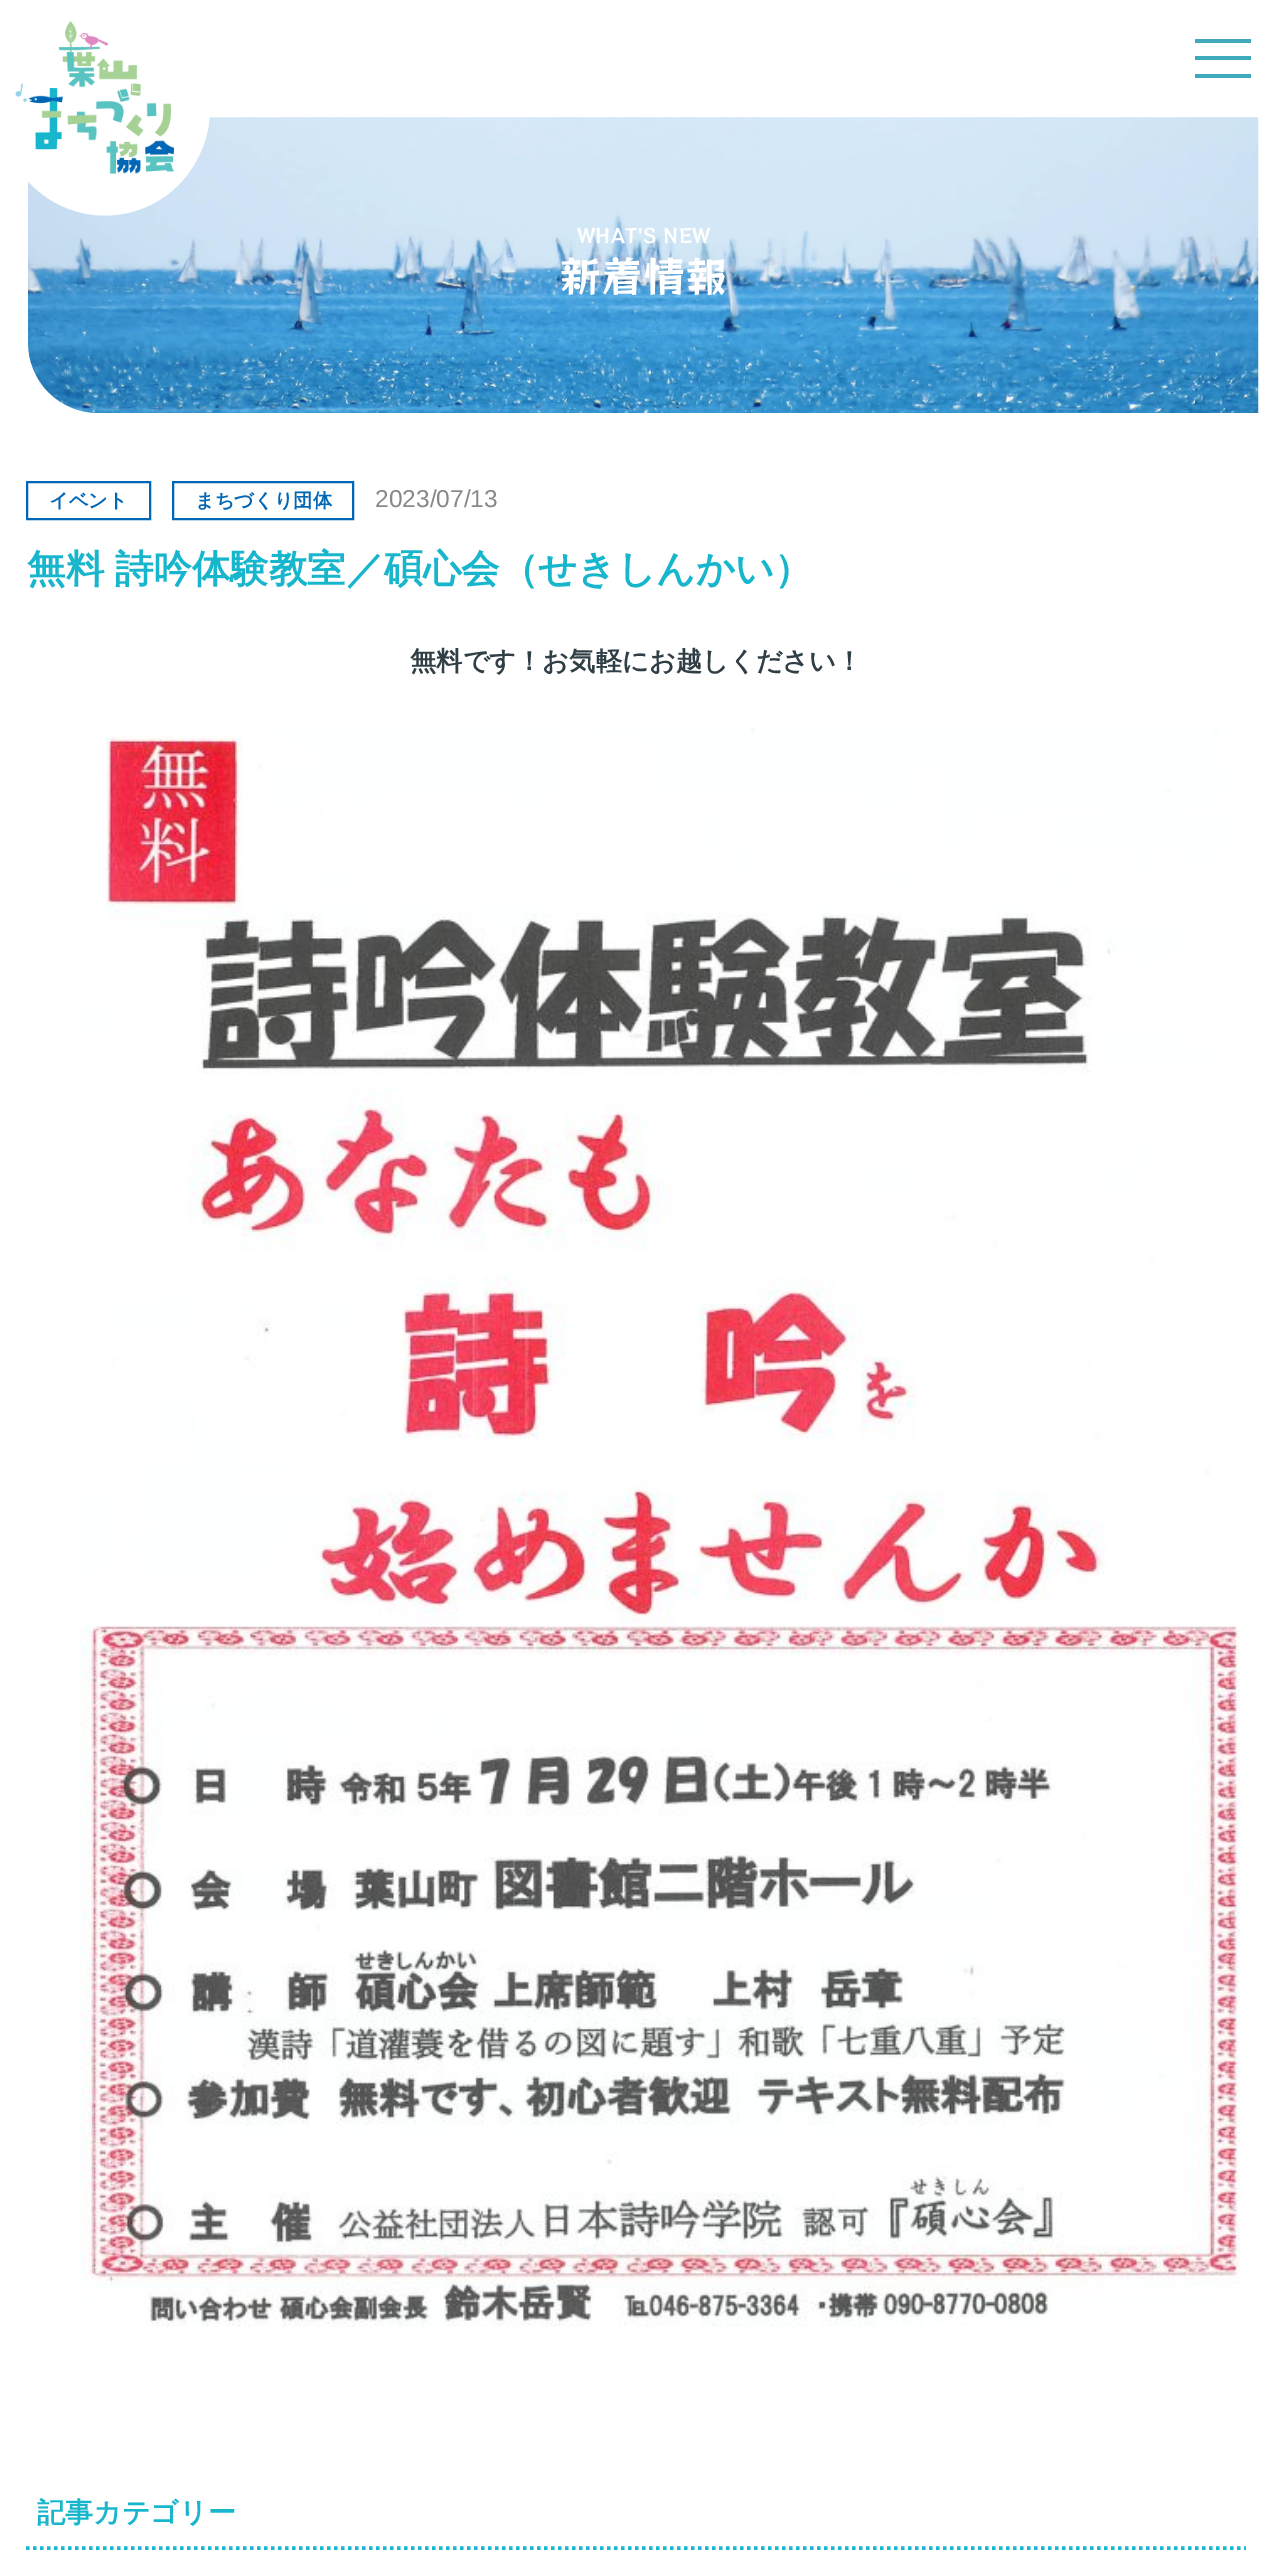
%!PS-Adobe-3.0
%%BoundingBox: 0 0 1271 2568
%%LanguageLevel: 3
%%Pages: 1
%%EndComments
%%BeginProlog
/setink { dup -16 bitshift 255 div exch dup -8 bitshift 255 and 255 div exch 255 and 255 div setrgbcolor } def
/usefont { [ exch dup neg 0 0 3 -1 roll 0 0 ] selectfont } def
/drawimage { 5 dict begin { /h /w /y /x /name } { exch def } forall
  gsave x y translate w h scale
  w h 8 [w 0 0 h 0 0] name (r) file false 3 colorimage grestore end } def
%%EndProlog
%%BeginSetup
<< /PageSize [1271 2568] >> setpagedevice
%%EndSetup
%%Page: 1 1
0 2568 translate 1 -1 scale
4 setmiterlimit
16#FFFFFF setink
0 0 1271 2568 rectfill
[
    [1195 56 56 4 16#40AABD]
    [1195 39 56 4 16#40AABD]
    [1195 74 56 4 16#40AABD]
] { aload pop setink rectfill } forall
(img2.raw) 28 117 1231 296 drawimage
16#FFFFFF setink
105 1.5 moveto 163 1.5 210 49.5 210 108.5 curveto 210 167.5 163 215.5 105 215.5 curveto 47 215.5 0 167.5 0 108.5 curveto 0 49.5 47 1.5 105 1.5 curveto closepath fill
(img1.raw) 15 21 195 153 drawimage
/RocknRollOne-Regular 19.25 usefont
577 243 moveto (WHAT'S NEW) show
/RocknRollOne-Regular 42 usefont
559 292 moveto (新着情報) show
16#0066B6 setink
2 setlinewidth
27 482 123 37 rectstroke
/WenQuanYiZenHei-Bold 19.25 usefont
49 507 moveto (イベント) show
173 482 180 37 rectstroke
195 507 moveto (まちづくり団体) show
/LiberationSans-Regular 24.5 usefont
16#888888 setink
375 507 moveto (2023/07/13) show
/WenQuanYiZenHei-Bold 38.5 usefont
16#17B6CC setink
27 582 moveto -1 0 32 (無料 詩吟体験教室／碩心会（せきしんかい）) widthshow
/WenQuanYiZenHei-Bold 26.25 usefont
16#303F46 setink
410 670 moveto (無料です！お気軽にお越しください！) show
(img3.raw) 79 728 1162 1599 drawimage
16#17B6CC setink
3.5 setlinewidth
[3.5 3.5] 0 setdash
26 2548 moveto 1246 2548 lineto stroke
/WenQuanYiZenHei-Bold 28 usefont
37 2522 moveto (記事カテゴリー) show
showpage
%%EOF
